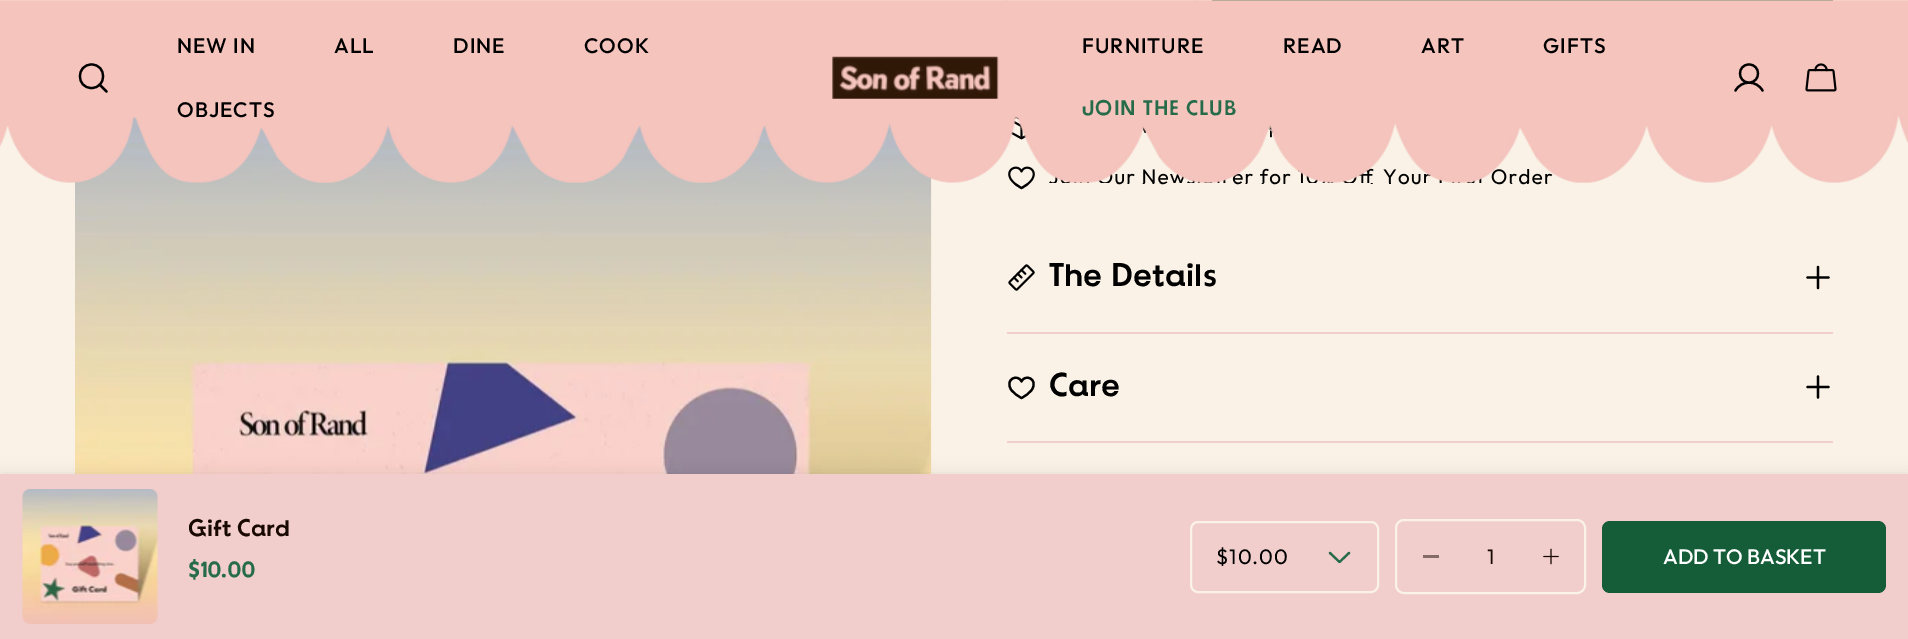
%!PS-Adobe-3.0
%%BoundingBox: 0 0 1908 639
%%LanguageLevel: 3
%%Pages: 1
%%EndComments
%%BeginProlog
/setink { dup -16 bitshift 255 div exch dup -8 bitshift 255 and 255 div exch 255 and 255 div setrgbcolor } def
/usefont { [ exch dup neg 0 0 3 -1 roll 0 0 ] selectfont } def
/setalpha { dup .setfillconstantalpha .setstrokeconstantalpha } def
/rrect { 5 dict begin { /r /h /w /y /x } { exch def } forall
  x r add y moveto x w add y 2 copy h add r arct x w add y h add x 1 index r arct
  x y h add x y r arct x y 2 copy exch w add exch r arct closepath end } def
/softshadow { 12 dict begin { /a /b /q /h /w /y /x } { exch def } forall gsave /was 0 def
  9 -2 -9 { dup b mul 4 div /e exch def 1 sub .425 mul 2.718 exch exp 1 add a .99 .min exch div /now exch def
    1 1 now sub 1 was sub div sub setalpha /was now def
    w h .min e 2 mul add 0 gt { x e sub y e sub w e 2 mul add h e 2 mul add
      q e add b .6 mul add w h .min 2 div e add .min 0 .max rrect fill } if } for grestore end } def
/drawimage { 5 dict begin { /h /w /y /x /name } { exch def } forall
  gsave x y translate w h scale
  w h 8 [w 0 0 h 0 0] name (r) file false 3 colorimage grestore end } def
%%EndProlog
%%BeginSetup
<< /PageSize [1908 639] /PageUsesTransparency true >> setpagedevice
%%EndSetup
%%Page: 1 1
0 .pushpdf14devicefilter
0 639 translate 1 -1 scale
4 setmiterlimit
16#FAF2E6 setink
0 0 1908 639 rectfill
(img4.raw) 75 116 857 358 drawimage
16#F1CDCB setink
2 setlinewidth
1006 -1 189 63 rectstroke
(img5.raw) 1011 116 16 24 drawimage
16#000000 setink
2.2 setlinewidth
1 setlinecap
1 setlinejoin
1021.5 188 moveto 1017.5 186 1013.5 183 1011 179.5 curveto 1004.5 169 1018 163.5 1021.5 171.5 curveto 1025 163.5 1038.5 169 1032 179.5 curveto 1029.5 183 1025.5 186 1021.5 188 curveto closepath stroke
/Outfit-Regular 21 usefont
1114 184 moveto 1 0 (ur Ne) ashow
1232 184 moveto 1 0 (er for) ashow
1368 184 moveto 1 0 (f You) ashow
1491 184 moveto 1 0 (Order) ashow
(img1.raw) 0 0 1908 183 drawimage
91.5 88 moveto 107 88 107 64.5 91.5 64.5 curveto 76 64.5 76 88 91.5 88 curveto closepath 99.5 84.5 moveto 106.5 91.5 lineto stroke
/Outfit-Medium 21 usefont
177 53 moveto 1 0 (NEW IN) ashow
334 53 moveto 1 0 (ALL) ashow
453 53 moveto 1 0 (DINE) ashow
584 53 moveto 1 0 (COOK) ashow
177 117 moveto 1 0 (OBJECTS) ashow
(img2.raw) 832 56 167 43 drawimage
1082 53 moveto 1 0 (FURNITURE) ashow
1283 53 moveto 1 0 (READ) ashow
1421 53 moveto 1 0 (ART) ashow
1543 53 moveto 1 0 (GIFTS) ashow
/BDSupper-Regular 21 usefont
16#276C4A setink
1082 115 moveto 1 0 (JOIN THE CLUB) ashow
16#000000 setink
1749 82.5 moveto 1761 82.5 1761 64.5 1749 64.5 curveto 1737 64.5 1737 82.5 1749 82.5 curveto closepath 1735.5 90.5 moveto 1741.5 80 1756.5 80 1762.5 90.5 curveto stroke
(img3.raw) 1805 63 32 29 drawimage
16#F1CDCB setink
1007 332 826 2 rectfill
(img6.raw) 1008 264 27 27 drawimage
/BDSupper-Regular 33 usefont
16#000000 setink
1049 286 moveto (The Details) show
1807.5 277.5 moveto 1828.5 277.5 lineto 1818 267 moveto 1818 288 lineto stroke
16#F1CDCB setink
1007 441 826 2 rectfill
16#000000 setink
1021.5 398 moveto 1017.5 396 1013.5 393 1011 389.5 curveto 1004.5 379 1018 373.5 1021.5 381.5 curveto 1025 373.5 1038.5 379 1032 389.5 curveto 1029.5 393 1025.5 396 1021.5 398 curveto closepath stroke
1049 396 moveto (Care) show
1807.5 387 moveto 1828.5 387 lineto 1818 376.5 moveto 1818 397.5 lineto stroke
0 474 1908 165 0 7.5 0.09 softshadow
16#F1CDCB setink
0 474 1908 165 rectfill
(img7.raw) 22 489 136 135 drawimage
/BDSupper-Regular 24 usefont
16#180900 setink
188 536 moveto (Gift Card) show
/BDSupper-Bold 21 usefont
16#276C4A setink
188 577 moveto ($10.00) show
16#FAF2E6 setink
2 setlinewidth
0 setlinecap
0 setlinejoin
1191 522 187 70 7 rrect stroke
/Outfit-Regular 21 usefont
16#000000 setink
1216 564 moveto 1 0 ($10.00) ashow
16#276C4A setink
2.2 setlinewidth
1 setlinecap
1 setlinejoin
1349 553 moveto 1339.5 562 lineto 1330 553 lineto stroke
16#FAF2E6 setink
2 setlinewidth
0 setlinecap
0 setlinejoin
1396 520 189 73 8 rrect stroke
16#856B66 setink
1423 555 16 3 rectfill
16#180900 setink
1487 564 moveto 1 0 (1) ashow
(img8.raw) 1543 548 16 17 drawimage
16#145D38 setink
1602 521 284 72 8 rrect fill
/Outfit-Medium 21 usefont
16#FFFFFF setink
1663 564 moveto (ADD TO BASKET) show
.poppdf14devicefilter showpage
%%EOF
